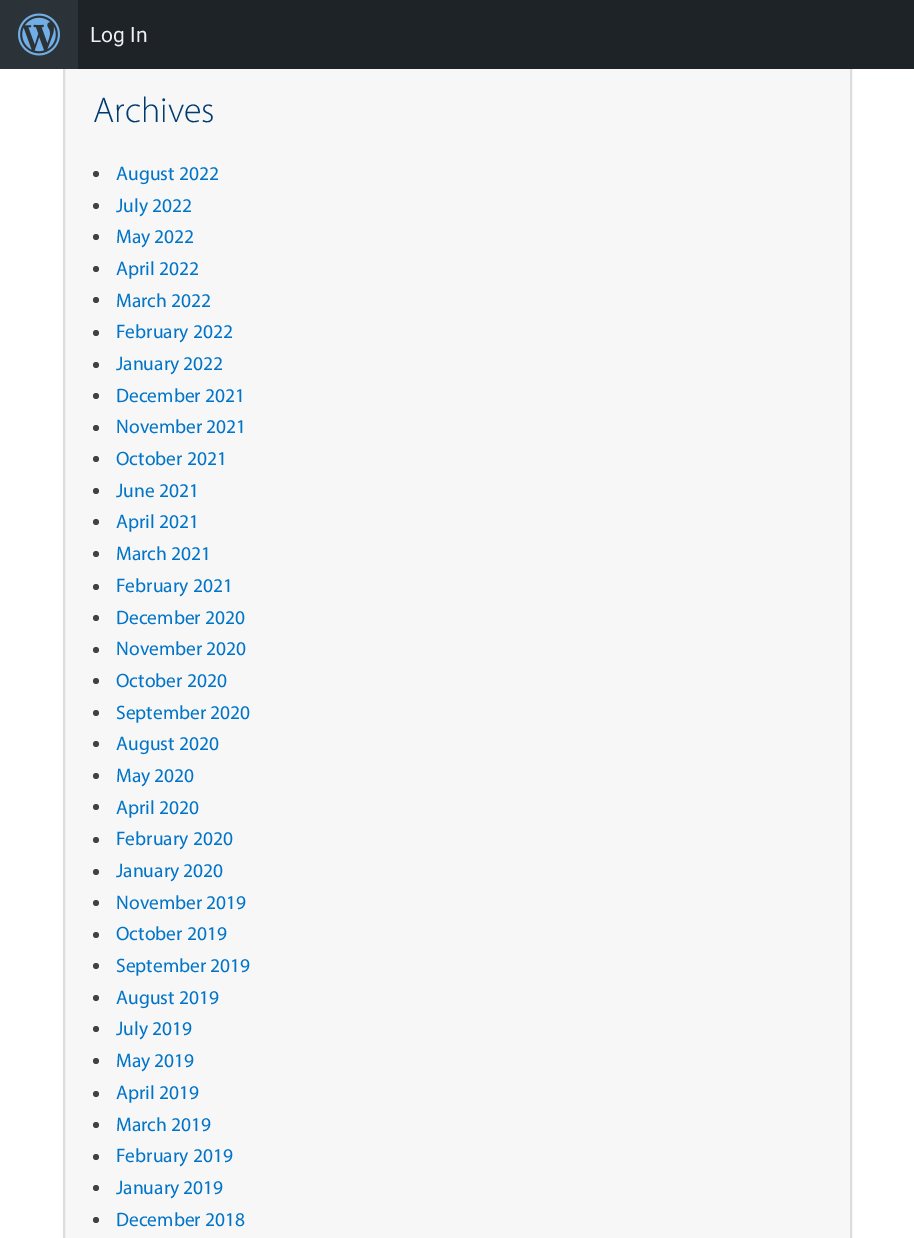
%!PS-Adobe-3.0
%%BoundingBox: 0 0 914 1238
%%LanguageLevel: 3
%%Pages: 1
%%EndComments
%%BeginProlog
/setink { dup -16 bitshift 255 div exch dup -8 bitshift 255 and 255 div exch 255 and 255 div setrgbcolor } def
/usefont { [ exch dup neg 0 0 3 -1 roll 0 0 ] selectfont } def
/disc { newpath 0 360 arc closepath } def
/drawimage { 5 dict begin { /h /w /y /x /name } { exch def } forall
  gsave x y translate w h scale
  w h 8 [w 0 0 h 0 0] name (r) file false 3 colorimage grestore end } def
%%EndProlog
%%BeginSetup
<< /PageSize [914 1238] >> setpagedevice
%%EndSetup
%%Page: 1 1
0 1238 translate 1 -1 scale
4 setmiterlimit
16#FFFFFF setink
0 0 914 1238 rectfill
16#F7F7F7 setink
65 69 785 1169 rectfill
16#DDDDDD setink
2 setlinewidth
64 58 787 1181 rectstroke
16#1D2327 setink
78 0 836 69 rectfill
16#2C3338 setink
0 0 78 69 rectfill
(img1.raw) 18 13 42 43 drawimage
/Roboto-Regular 21 usefont
16#F0F0F1 setink
90 42 moveto (Log In) show
/Myriad-Light 36 usefont
16#003B70 setink
93 122 moveto (Archives) show
16#424242 setink
96 174 3 disc fill
/Myriad-Regular 19.5 usefont
16#0074C8 setink
116 180 moveto (August 2022) show
16#424242 setink
96 206 3 disc fill
16#0074C8 setink
116 212 moveto (July 2022) show
16#424242 setink
96 237 3 disc fill
16#0074C8 setink
116 243 moveto (May 2022) show
16#424242 setink
96 269 3 disc fill
16#0074C8 setink
116 275 moveto (April 2022) show
16#424242 setink
96 300 3 disc fill
16#0074C8 setink
116 307 moveto (March 2022) show
16#424242 setink
96 333 3 disc fill
16#0074C8 setink
116 338 moveto (February 2022) show
16#424242 setink
96 365 3 disc fill
16#0074C8 setink
116 370 moveto (January 2022) show
16#424242 setink
96 396 3 disc fill
16#0074C8 setink
116 402 moveto (December 2021) show
16#424242 setink
96 428 3 disc fill
16#0074C8 setink
116 433 moveto (November 2021) show
16#424242 setink
96 459 3 disc fill
16#0074C8 setink
116 465 moveto (October 2021) show
16#424242 setink
96 491 3 disc fill
16#0074C8 setink
116 497 moveto (June 2021) show
16#424242 setink
96 522 3 disc fill
16#0074C8 setink
116 528 moveto (April 2021) show
16#424242 setink
96 554 3 disc fill
16#0074C8 setink
116 560 moveto (March 2021) show
16#424242 setink
96 587 3 disc fill
16#0074C8 setink
116 592 moveto (February 2021) show
16#424242 setink
96 618 3 disc fill
16#0074C8 setink
116 624 moveto (December 2020) show
16#424242 setink
96 650 3 disc fill
16#0074C8 setink
116 655 moveto (November 2020) show
16#424242 setink
96 681 3 disc fill
16#0074C8 setink
116 687 moveto (October 2020) show
16#424242 setink
96 713 3 disc fill
16#0074C8 setink
116 719 moveto (September 2020) show
16#424242 setink
96 744 3 disc fill
16#0074C8 setink
116 750 moveto (August 2020) show
16#424242 setink
96 776 3 disc fill
16#0074C8 setink
116 782 moveto (May 2020) show
16#424242 setink
96 807 3 disc fill
16#0074C8 setink
116 814 moveto (April 2020) show
16#424242 setink
96 840 3 disc fill
16#0074C8 setink
116 845 moveto (February 2020) show
16#424242 setink
96 872 3 disc fill
16#0074C8 setink
116 877 moveto (January 2020) show
16#424242 setink
96 903 3 disc fill
16#0074C8 setink
116 909 moveto (November 2019) show
16#424242 setink
96 935 3 disc fill
16#0074C8 setink
116 940 moveto (October 2019) show
16#424242 setink
96 966 3 disc fill
16#0074C8 setink
116 972 moveto (September 2019) show
16#424242 setink
96 998 3 disc fill
16#0074C8 setink
116 1004 moveto (August 2019) show
16#424242 setink
96 1029 3 disc fill
16#0074C8 setink
116 1035 moveto (July 2019) show
16#424242 setink
96 1061 3 disc fill
16#0074C8 setink
116 1067 moveto (May 2019) show
16#424242 setink
96 1094 3 disc fill
16#0074C8 setink
116 1099 moveto (April 2019) show
16#424242 setink
96 1125 3 disc fill
16#0074C8 setink
116 1131 moveto (March 2019) show
16#424242 setink
96 1157 3 disc fill
16#0074C8 setink
116 1162 moveto (February 2019) show
16#424242 setink
96 1188 3 disc fill
16#0074C8 setink
116 1194 moveto (January 2019) show
16#424242 setink
96 1220 3 disc fill
16#0074C8 setink
116 1226 moveto (December 2018) show
showpage
%%EOF
